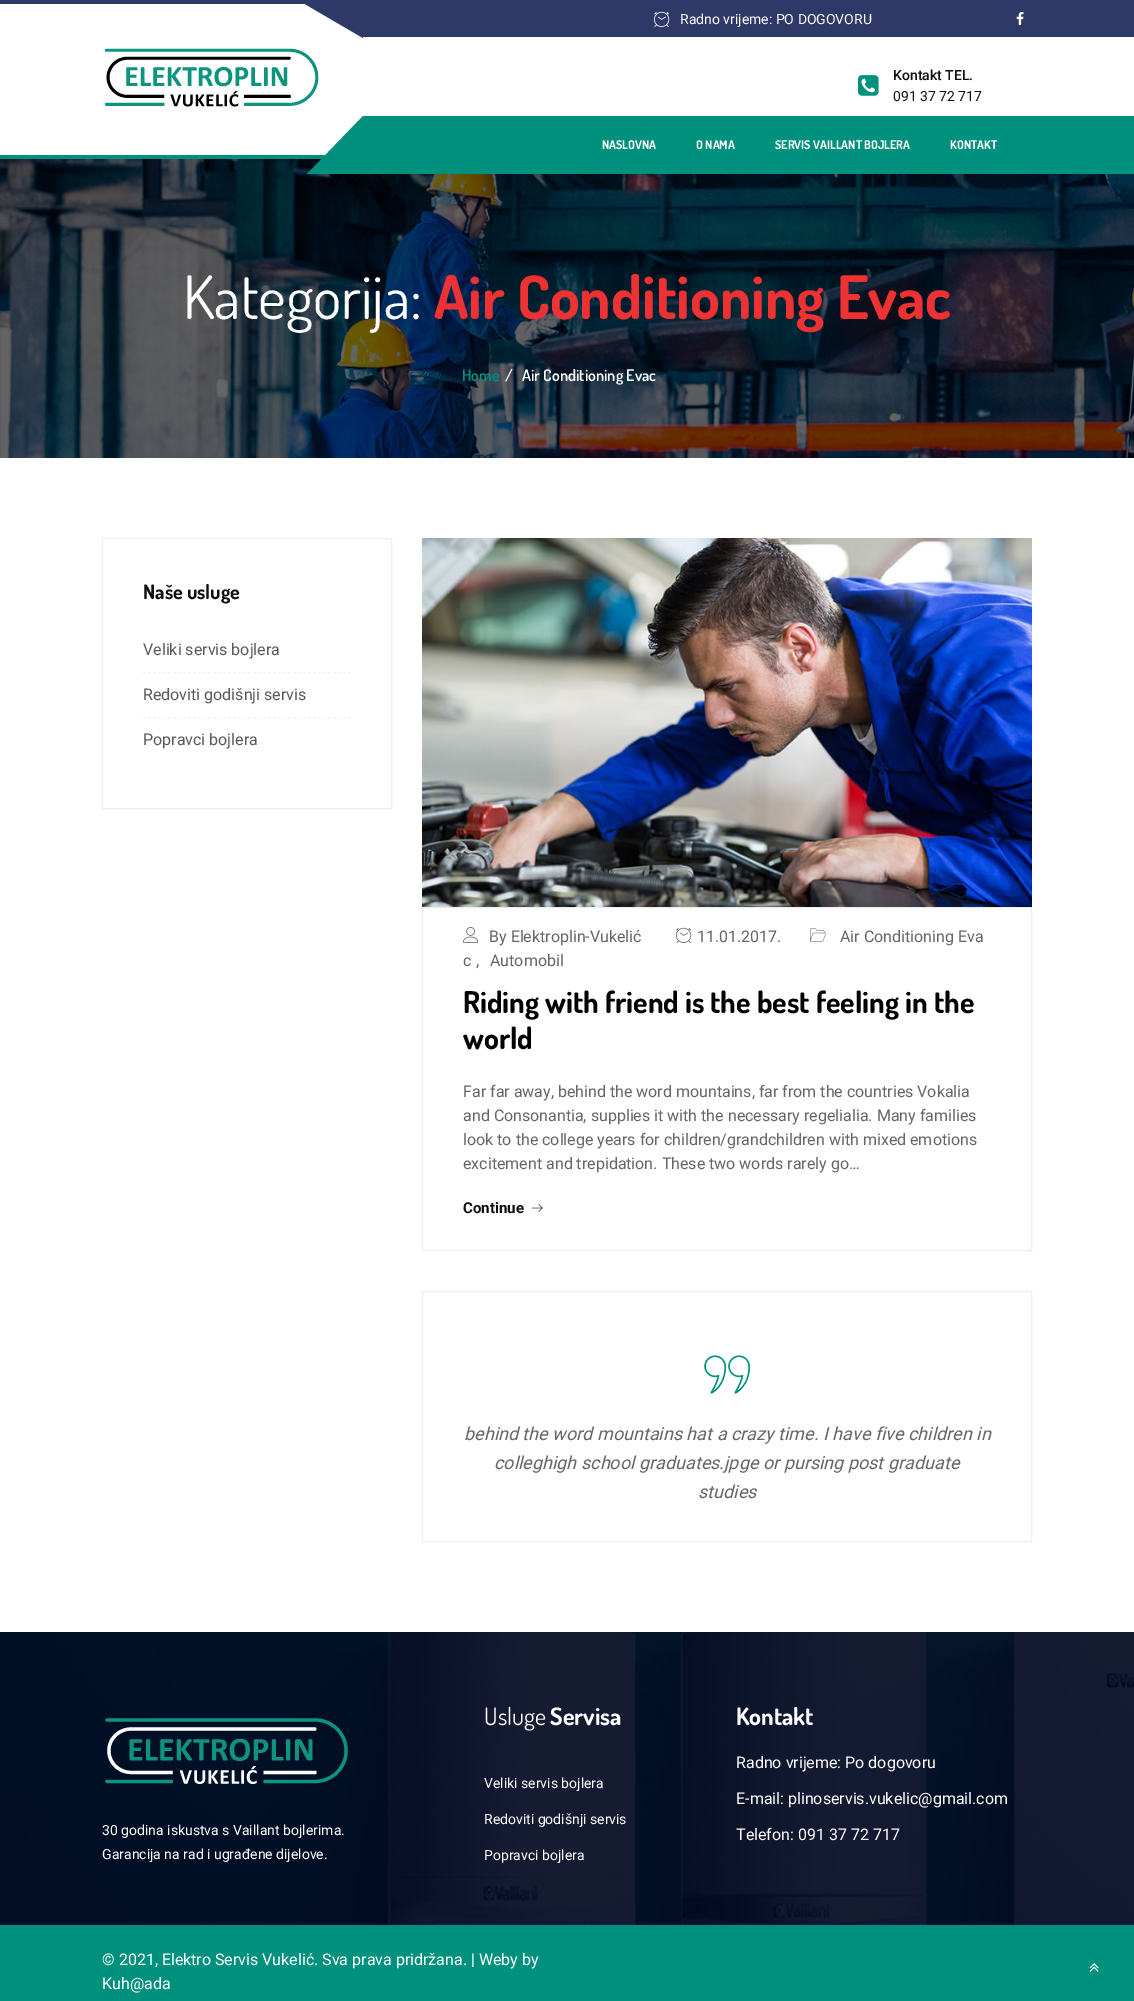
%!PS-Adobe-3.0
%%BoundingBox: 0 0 1134 2001
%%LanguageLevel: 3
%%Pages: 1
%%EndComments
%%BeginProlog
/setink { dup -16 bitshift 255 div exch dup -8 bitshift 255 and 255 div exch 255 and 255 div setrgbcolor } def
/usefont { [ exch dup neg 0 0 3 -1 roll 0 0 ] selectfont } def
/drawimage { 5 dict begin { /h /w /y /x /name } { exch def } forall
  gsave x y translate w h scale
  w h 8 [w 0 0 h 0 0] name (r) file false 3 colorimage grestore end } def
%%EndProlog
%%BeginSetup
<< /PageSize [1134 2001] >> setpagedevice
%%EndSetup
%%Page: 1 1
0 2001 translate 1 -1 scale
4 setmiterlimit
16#FFFFFF setink
0 0 1134 2001 rectfill
16#2F3967 setink
0 0 1134 4 rectfill
363 0 moveto 363 38 lineto 298 0 lineto closepath fill
363 4 771 33 rectfill
(img1.raw) 654 11 16 16 drawimage
/Roboto-Regular 14 usefont
16#FFFFFF setink
680 24 moveto (Radno vrijeme: PO DOGOVORU) show
(img2.raw) 1016 12 8 13 drawimage
(img3.raw) 104 48 215 59 drawimage
(img4.raw) 858 75 21 21 drawimage
/Roboto-Medium 14 usefont
16#101010 setink
893 80 moveto (Kontakt TEL.) show
/Roboto-Regular 14 usefont
893 101 moveto (091 37 72 717) show
16#00917E setink
0 155 326 4 rectfill
(img5.raw) 0 159 1134 299 drawimage
363 116 moveto 363 174 lineto 307 174 lineto closepath fill
363 116 771 58 rectfill
/Dosis-Bold 12 usefont
16#FFFFFF setink
[
    [(NASLOVNA) 602 149]
    [(O NAMA) 696 149]
    [(SERVIS VAILLANT BOJLERA) 775 149]
    [(KONTAKT) 950 149]
] { aload pop moveto show } forall
/Dosis-Regular 60 usefont
183 319 moveto (Kategorija:) show
/Dosis-Bold 60 usefont
16#EE3233 setink
434 319 moveto (Air Conditioning Evac) show
/Dosis-SemiBold 16 usefont
16#00917E setink
462 381 moveto (Home) show
16#FFFFFF setink
505 381 moveto (/) show
522 381 moveto (Air Conditioning Evac) show
16#EEEEEE setink
102.5 538.5 289 270 rectstroke
/Dosis-Bold 20 usefont
16#101010 setink
143 599 moveto (Naše usluge) show
16#F1F1F1 setink
[3 2] 0 setdash
143 672.5 moveto 351 672.5 lineto stroke
/Roboto-Regular 16 usefont
16#5A5A5A setink
143 655 moveto (Veliki servis bojlera) show
16#F1F1F1 setink
143 717.5 moveto 351 717.5 lineto stroke
16#5A5A5A setink
143 700 moveto (Redoviti godišnji servis) show
143 745 moveto (Popravci bojlera) show
(img6.raw) 422 538 610 369 drawimage
16#EEEEEE setink
[] 0 setdash
422.5 907.5 609 343 rectstroke
(img7.raw) 463 927 16 16 drawimage
16#666666 setink
489 942 moveto (By Elektroplin-Vukelić) show
(img8.raw) 676 927 16 16 drawimage
697 942 moveto (11.01.2017.) show
(img9.raw) 810 928 16 14 drawimage
[
    [(Air Conditioning Eva) 840 942]
    [(c) 463 966]
    [(,) 476 966]
    [(Automobil) 490 966]
] { aload pop moveto show } forall
/Dosis-Bold 30 usefont
16#010101 setink
463 1013 moveto (Riding with friend is the best feeling in the) show
463 1049 moveto (world) show
/Roboto-Regular 16 usefont
16#666666 setink
[
    [(Far far away, behind the word mountains, far from the countries Vokalia) 463 1097]
    [(and Consonantia, supplies it with the necessary regelialia. Many families) 463 1121]
    [(look to the college years for children/grandchildren with mixed emotions) 463 1145]
    [(excitement and trepidation. These two words rarely go…) 463 1169]
] { aload pop moveto show } forall
/Roboto-Bold 15 usefont
16#101010 setink
463 1213 moveto (Continue) show
(img10.raw) 531 1204 12 8 drawimage
16#EEEEEE setink
422.5 1291.5 609 250 rectstroke
(img11.raw) 704 1355 46 39 drawimage
/Roboto-Italic 18 usefont
16#666666 setink
[
    [(behind the word mountains hat a crazy time. I have five children in) 464 1440]
    [(colleghigh school graduates.jpge or pursing post graduate) 494 1469]
    [(studies) 698 1498]
] { aload pop moveto show } forall
(img12.raw) 0 1632 1134 293 drawimage
(img13.raw) 105 1718 243 66 drawimage
/Roboto-Regular 14 usefont
16#FFFFFF setink
102 1835 moveto (30 godina iskustva s Vaillant bojlerima.) show
102 1859 moveto (Garancija na rad i ugrađene dijelove.) show
/Dosis-Regular 24 usefont
484 1725 moveto (Usluge) show
/Dosis-Bold 24 usefont
550 1725 moveto (Servisa) show
/Roboto-Regular 14 usefont
[
    [(Veliki servis bojlera) 484 1788]
    [(Redoviti godišnji servis) 484 1824]
    [(Popravci bojlera) 484 1860]
] { aload pop moveto show } forall
/Dosis-Bold 24 usefont
736 1725 moveto (Kontakt) show
/Roboto-Regular 16 usefont
[
    [(Radno vrijeme: Po dogovoru) 736 1768]
    [(E-mail: plinoservis.vukelic@gmail.com) 736 1804]
    [(Telefon: 091 37 72 717) 736 1840]
] { aload pop moveto show } forall
16#00917E setink
0 1925 1134 76 rectfill
16#FFFFFF setink
102 1965 moveto (© 2021, Elektro Servis Vukelić. Sva prava pridržana. | Weby by) show
102 1989 moveto (Kuh@ada) show
(img14.raw) 1089 1963 10 9 drawimage
showpage
%%EOF
